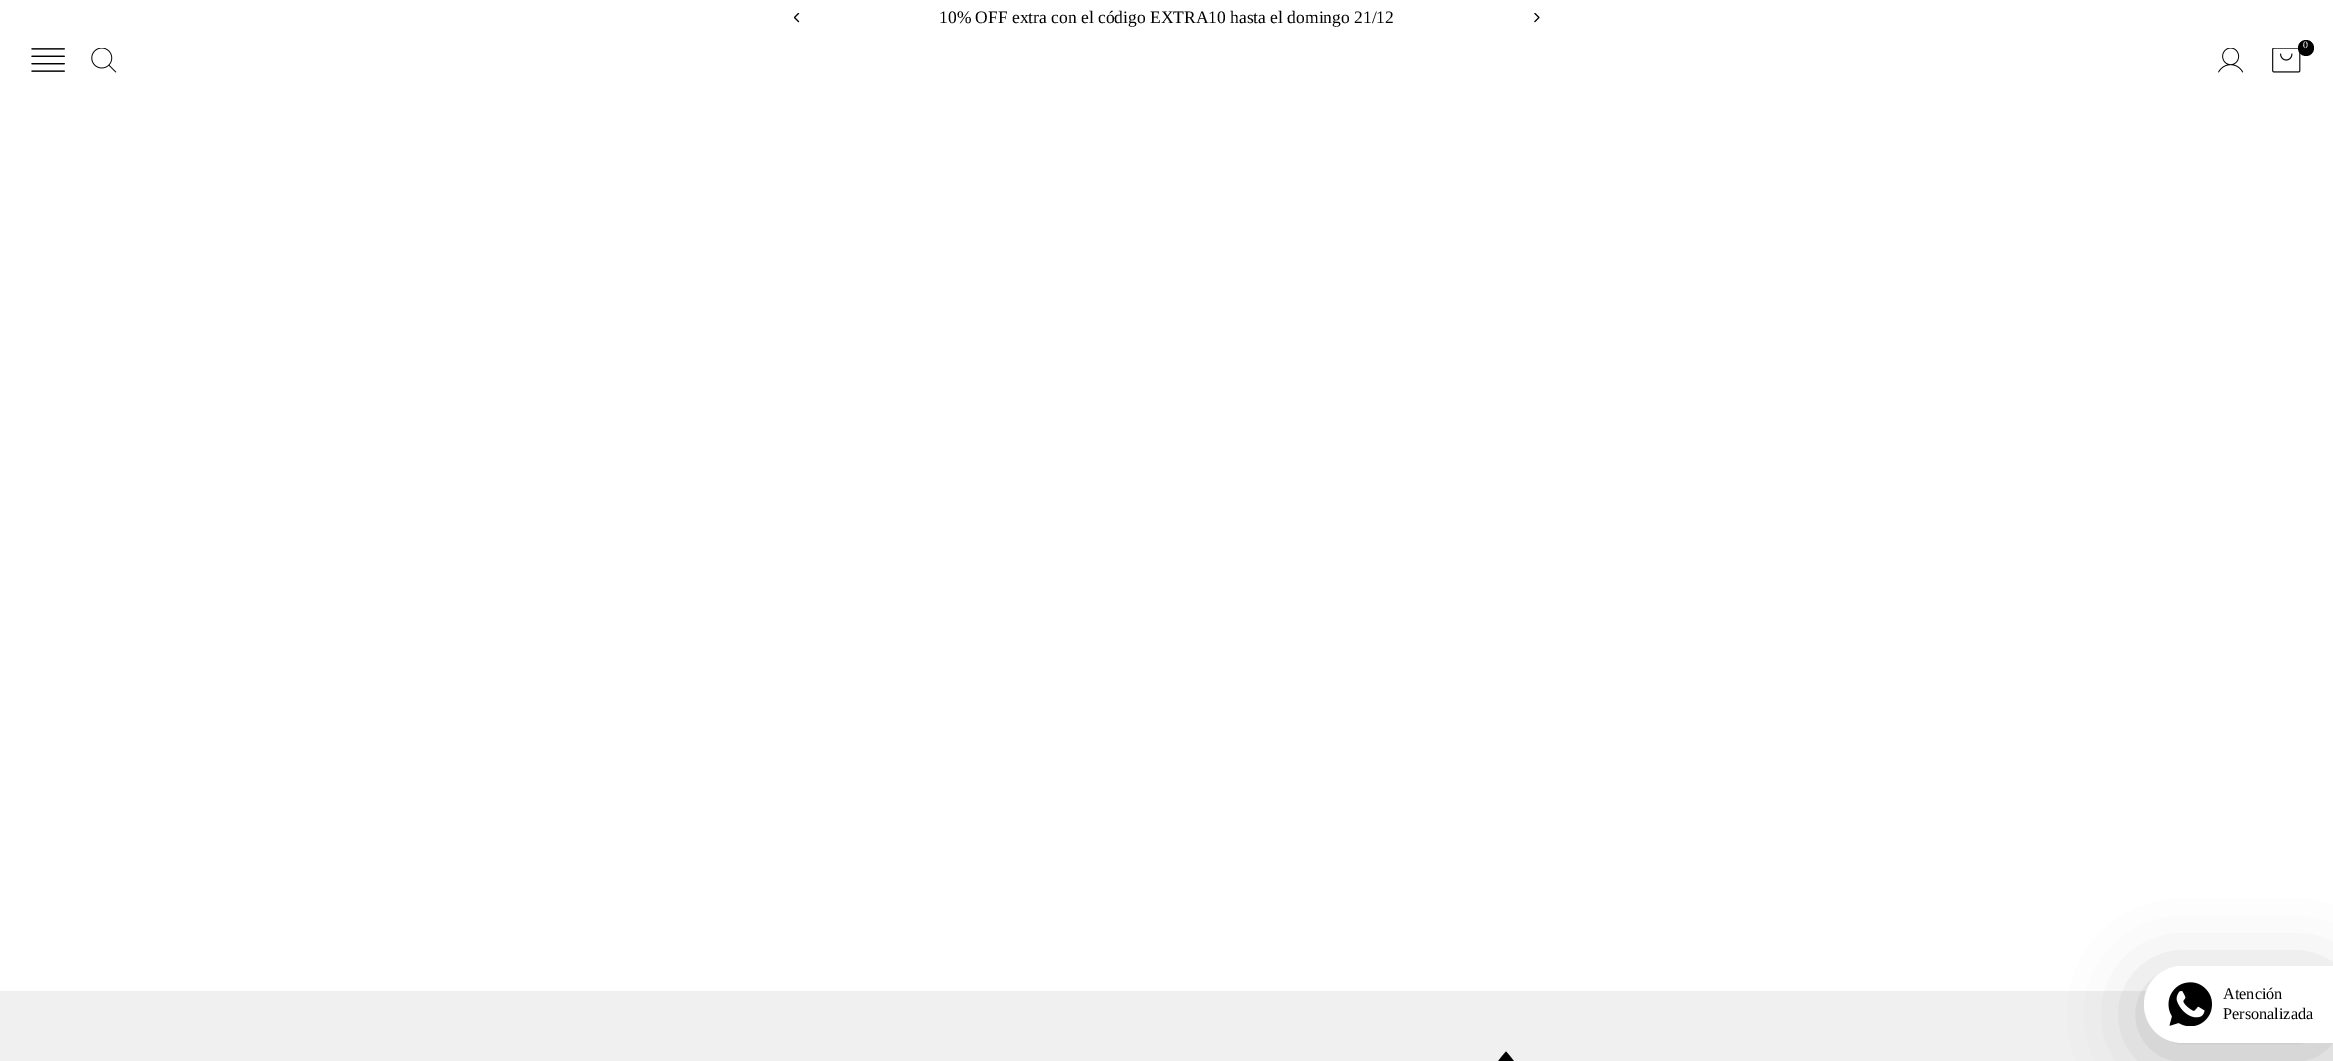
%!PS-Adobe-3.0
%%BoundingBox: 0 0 2333 1061
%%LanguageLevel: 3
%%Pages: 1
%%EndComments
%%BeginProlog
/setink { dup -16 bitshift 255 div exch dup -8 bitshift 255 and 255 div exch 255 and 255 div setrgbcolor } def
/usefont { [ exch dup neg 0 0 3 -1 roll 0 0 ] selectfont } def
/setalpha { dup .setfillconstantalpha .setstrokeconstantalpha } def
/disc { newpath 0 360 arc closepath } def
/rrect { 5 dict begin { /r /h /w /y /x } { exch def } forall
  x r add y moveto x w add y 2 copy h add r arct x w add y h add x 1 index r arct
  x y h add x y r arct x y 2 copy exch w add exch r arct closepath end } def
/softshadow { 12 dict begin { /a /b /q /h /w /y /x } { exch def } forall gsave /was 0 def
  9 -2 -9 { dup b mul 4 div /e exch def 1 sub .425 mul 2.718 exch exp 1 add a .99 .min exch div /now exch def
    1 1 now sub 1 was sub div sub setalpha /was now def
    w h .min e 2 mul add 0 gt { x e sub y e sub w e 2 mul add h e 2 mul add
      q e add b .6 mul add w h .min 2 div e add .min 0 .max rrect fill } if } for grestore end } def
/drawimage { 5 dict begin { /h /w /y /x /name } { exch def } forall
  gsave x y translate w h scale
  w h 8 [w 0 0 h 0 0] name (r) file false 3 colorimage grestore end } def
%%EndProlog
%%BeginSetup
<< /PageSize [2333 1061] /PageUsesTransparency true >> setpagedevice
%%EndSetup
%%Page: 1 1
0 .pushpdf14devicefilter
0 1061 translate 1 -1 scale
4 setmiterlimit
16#FFFFFF setink
0 0 2333 1061 rectfill
(img1.raw) 794 13 6 10 drawimage
/LiberationSerif-Regular 17.5 usefont
16#000000 setink
939 23 moveto (10% OFF extra con el código EXTRA10 hasta el domingo 21/12) show
(img2.raw) 1534 13 6 10 drawimage
(img3.raw) 2272 48 29 25 drawimage
2306 48 8 disc fill
/LiberationSerif-Regular 10 usefont
16#FFFFFF setink
2303 48 moveto (0) show
(img4.raw) 31 48 34 24 drawimage
(img5.raw) 91 48 26 25 drawimage
(img6.raw) 2218 48 26 25 drawimage
16#F0F0F0 setink
0 991 2333 70 rectfill
16#000000 setink
2144 976 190 77 38.5 34.5 0.2 softshadow
16#FFFFFF setink
2182.5 966 moveto 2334 966 lineto 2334 1043 lineto 2182.5 1043 lineto 2161 1043 2144 1026 2144 1004.5 curveto 2144 983 2161 966 2182.5 966 curveto closepath fill
(img7.raw) 2168 982 44 44 drawimage
/LiberationSerif-Regular 16.25 usefont
16#000000 setink
2223 999 moveto (Atención) show
2223 1019 moveto (Personalizada) show
(img8.raw) 1498 1051 16 10 drawimage
.poppdf14devicefilter showpage
%%EOF
